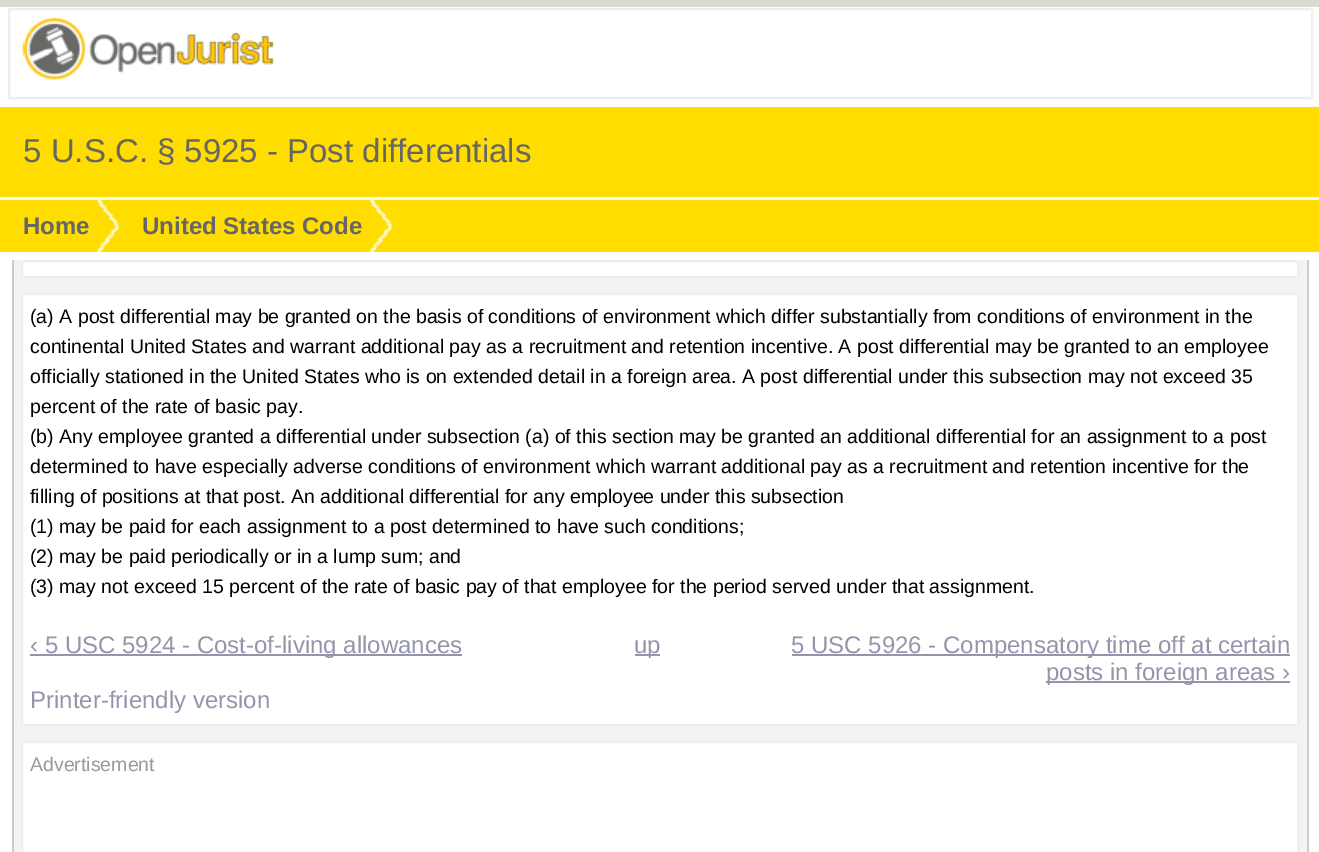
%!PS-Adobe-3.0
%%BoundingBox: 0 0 1319 852
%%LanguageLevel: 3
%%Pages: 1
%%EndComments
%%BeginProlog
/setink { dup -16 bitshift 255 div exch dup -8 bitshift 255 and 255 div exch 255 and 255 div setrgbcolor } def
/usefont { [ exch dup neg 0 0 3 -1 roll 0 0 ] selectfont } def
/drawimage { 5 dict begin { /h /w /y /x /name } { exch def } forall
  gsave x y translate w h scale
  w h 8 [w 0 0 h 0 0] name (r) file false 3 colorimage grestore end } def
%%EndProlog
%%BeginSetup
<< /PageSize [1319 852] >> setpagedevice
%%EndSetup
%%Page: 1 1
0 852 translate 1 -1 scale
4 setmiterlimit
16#D8DCD0 setink
0 0 1319 852 rectfill
16#FFFFFF setink
0 7 1319 845 rectfill
16#EEEEEE setink
2 setlinewidth
9 9 1303 89 rectstroke
(img1.raw) 22 17 252 63 drawimage
16#FFDD00 setink
0 107 1319 90 rectfill
/LiberationSans-Regular 33 usefont
16#666666 setink
23 162 moveto (5 U.S.C. § 5925 - Post differentials) show
16#FFDD00 setink
0 200 1319 52 rectfill
(img2.raw) 97 199 22 53 drawimage
/LiberationSans-Bold 24 usefont
16#666666 setink
23 234 moveto (Home) show
(img3.raw) 370 199 22 53 drawimage
142 234 moveto (United States Code) show
[
    [14 260 1293 592 16#F3F3F3]
    [1307 260 2 592 16#CCCCCC]
    [12 260 2 592 16#CCCCCC]
] { aload pop setink rectfill } forall
16#FFFFFF setink
22 261 moveto 1298 261 lineto 1298 277 lineto 22 277 lineto closepath gsave fill grestore
16#EEEEEE setink
stroke
16#FFFFFF setink
22 294 moveto 1298 294 lineto 1298 725 lineto 22 725 lineto closepath gsave fill grestore
16#EEEEEE setink
stroke
/LiberationSans-Regular 19.5 usefont
16#000000 setink
[
    [(\(a\) A post differential may be granted on the basis of conditions of environment which differ substantially from conditions of environment in the) 30 323]
    [(continental United States and warrant additional pay as a recruitment and retention incentive. A post differential may be granted to an employee) 30 353]
    [(officially stationed in the United States who is on extended detail in a foreign area. A post differential under this subsection may not exceed 35) 30 383]
    [(percent of the rate of basic pay.) 30 413]
    [(\(b\) Any employee granted a differential under subsection \(a\) of this section may be granted an additional differential for an assignment to a post) 30 443]
    [(determined to have especially adverse conditions of environment which warrant additional pay as a recruitment and retention incentive for the) 30 473]
    [(filling of positions at that post. An additional differential for any employee under this subsection) 30 503]
    [(\(1\) may be paid for each assignment to a post determined to have such conditions;) 30 533]
    [(\(2\) may be paid periodically or in a lump sum; and) 30 563]
    [(\(3\) may not exceed 15 percent of the rate of basic pay of that employee for the period served under that assignment.) 30 593]
] { aload pop moveto show } forall
16#9495AB setink
30 654 432 2 rectfill
/LiberationSans-Regular 24 usefont
30 653 moveto (‹ 5 USC 5924 - Cost-of-living allowances) show
635 654 25 2 rectfill
634 653 moveto (up) show
792 654 498 2 rectfill
791 653 moveto (5 USC 5926 - Compensatory time off at certain) show
1046 681 244 2 rectfill
1046 680 moveto (posts in foreign areas ›) show
30 708 moveto (Printer-friendly version) show
16#FFFFFF setink
22 742 moveto 1298 742 lineto 1298 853 lineto 22 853 lineto closepath gsave fill grestore
16#EEEEEE setink
stroke
/LiberationSans-Regular 19.5 usefont
16#989A94 setink
30 771 moveto (Advertisement) show
showpage
%%EOF
